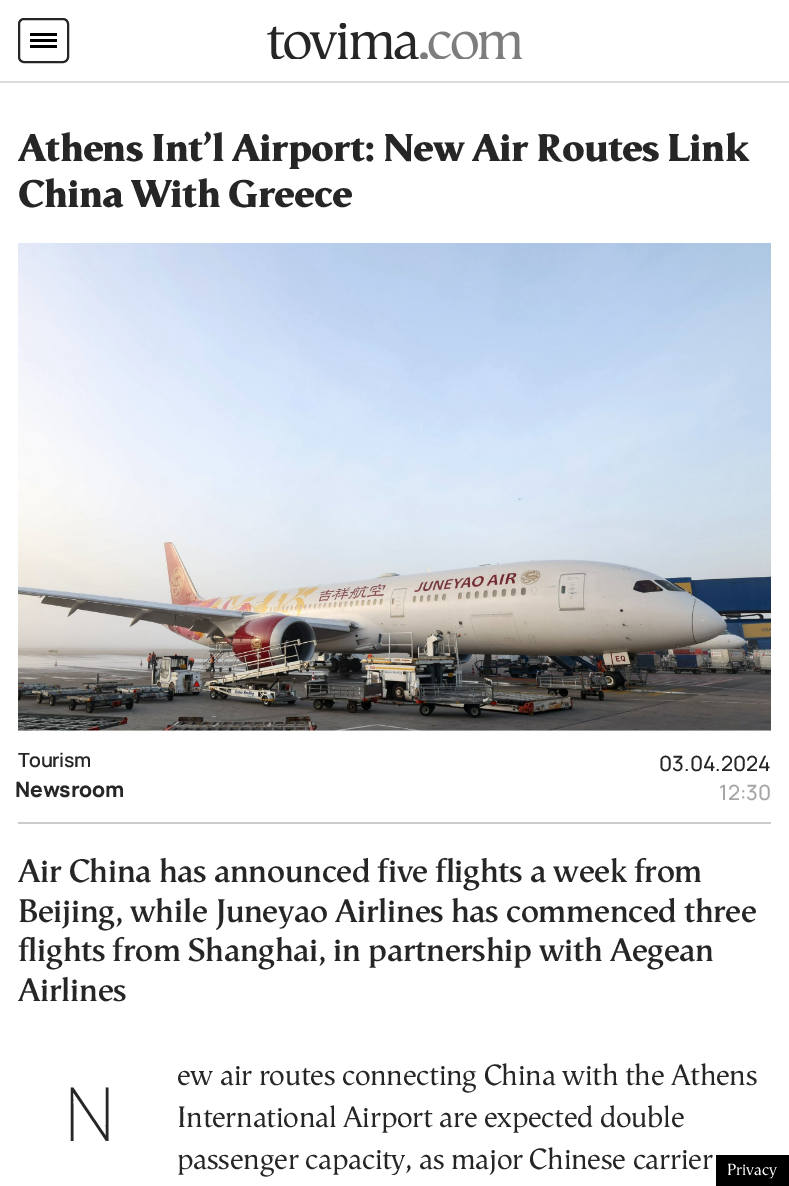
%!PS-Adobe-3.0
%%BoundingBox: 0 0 789 1186
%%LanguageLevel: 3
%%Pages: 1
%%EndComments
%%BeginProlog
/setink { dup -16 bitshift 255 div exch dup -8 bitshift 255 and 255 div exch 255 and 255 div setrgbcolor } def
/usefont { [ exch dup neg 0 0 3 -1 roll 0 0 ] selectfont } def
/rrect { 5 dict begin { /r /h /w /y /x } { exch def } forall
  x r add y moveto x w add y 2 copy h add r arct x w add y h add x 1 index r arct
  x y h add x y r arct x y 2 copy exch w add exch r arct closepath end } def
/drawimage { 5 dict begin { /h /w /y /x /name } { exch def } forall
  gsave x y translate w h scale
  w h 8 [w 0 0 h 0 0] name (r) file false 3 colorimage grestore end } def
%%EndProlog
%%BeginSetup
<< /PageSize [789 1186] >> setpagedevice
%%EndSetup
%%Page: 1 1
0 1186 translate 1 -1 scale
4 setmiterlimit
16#FFFFFF setink
0 0 789 1186 rectfill
16#DDDDDD setink
0 81 789 2 rectfill
16#262626 setink
2 setlinewidth
19 19 49 43 5 rrect stroke
[
    [30 33 27 3 16#000000]
    [30 39 27 3 16#000000]
    [30 45 27 3 16#000000]
] { aload pop setink rectfill } forall
(img1.raw) 267 23 255 36 drawimage
/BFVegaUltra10-Regular 39 usefont
16#262626 setink
18 161 moveto -0.95 0 (Athens Int’l Airport: New Air Routes Link) ashow
18 207 moveto -0.95 0 (China With Greece) ashow
16#F4F4F4 setink
18 730 753 1 rectfill
(img2.raw) 18 243 753 488 drawimage
16#CCCCCC setink
18 822 753 2 rectfill
/Manrope-SemiBold 19.5 usefont
16#262626 setink
18 767 moveto -0.5 0 (Tourism) ashow
/Manrope-ExtraBold 21 usefont
15 797 moveto -0.25 0 (Newsroom) ashow
/Manrope-Medium 21 usefont
659 771 moveto (03.04.2024) show
16#A6A6A6 setink
719 800 moveto (12:30) show
/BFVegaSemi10-Bold 33 usefont
16#262626 setink
18 882 moveto -0.35 0 (Air China has announced five flights a week from) ashow
18 922 moveto -0.35 0 (Beijing, while Juneyao Airlines has commenced three) ashow
18 961 moveto -0.35 0 (flights from Shanghai, in partnership with Aegean) ashow
18 1001 moveto -0.35 0 (Airlines) ashow
/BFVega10-Regular 30 usefont
177 1085 moveto -0.3 0 (ew air routes connecting China with the Athens) ashow
/NotoSans-ExtraLight 75 usefont
63 1141 moveto -0.3 0 (N) ashow
/BFVega10-Regular 30 usefont
177 1127 moveto -0.3 0 (International Airport are expected double) ashow
177 1169 moveto -0.3 0 (passenger capacity, as major Chinese carrier) ashow
16#000000 setink
716 1155 73 31 rectfill
/BFVega10-Regular 16.5 usefont
16#FFFFFF setink
727 1175 moveto (Privacy) show
showpage
%%EOF
